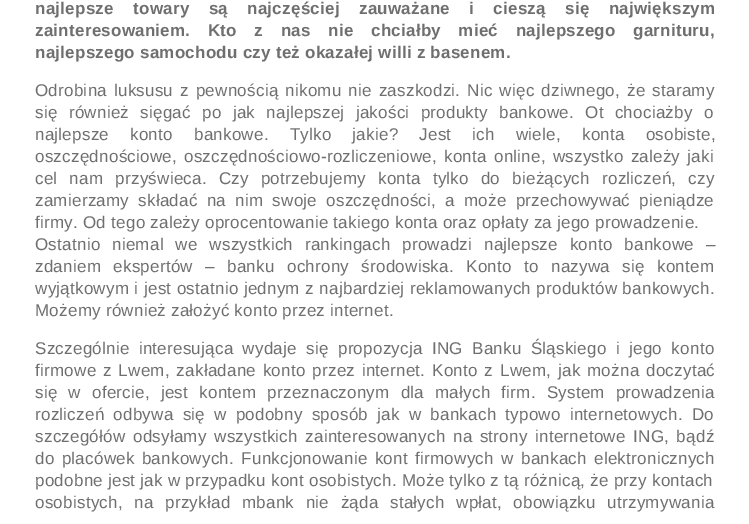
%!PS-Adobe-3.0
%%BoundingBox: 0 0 749 524
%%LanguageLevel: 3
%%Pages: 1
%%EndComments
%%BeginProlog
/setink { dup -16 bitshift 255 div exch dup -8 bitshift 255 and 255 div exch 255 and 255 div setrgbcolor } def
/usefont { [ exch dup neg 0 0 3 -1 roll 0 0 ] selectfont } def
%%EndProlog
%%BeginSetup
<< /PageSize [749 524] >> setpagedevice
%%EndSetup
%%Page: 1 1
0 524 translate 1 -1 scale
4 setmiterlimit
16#FFFFFF setink
0 0 749 524 rectfill
/LiberationSans-Bold 17 usefont
16#6F6F6F setink
35 14 moveto 14.25 0 32 0.25 0 (najlepsze towary są najczęściej zauważane i cieszą się największym) awidthshow
35 36 moveto 12.5 0 32 0.25 0 (zainteresowaniem. Kto z nas nie chciałby mieć najlepszego garnituru,) awidthshow
35 58 moveto 0.25 0 (najlepszego samochodu czy też okazałej willi z basenem.) ashow
/LiberationSans-Regular 17 usefont
35 96 moveto 1.9 0 32 0.25 0 (Odrobina luksusu z pewnością nikomu nie zaszkodzi. Nic więc dziwnego, że staramy) awidthshow
35 118 moveto 6.25 0 32 0.25 0 (się również sięgać po jak najlepszej jakości produkty bankowe. Ot chociażby o) awidthshow
35 140 moveto 16 0 32 0.25 0 (najlepsze konto bankowe. Tylko jakie? Jest ich wiele, konta osobiste,) awidthshow
35 162 moveto 2 0 32 0.25 0 (oszczędnościowe, oszczędnościowo-rozliczeniowe, konta online, wszystko zależy jaki) awidthshow
35 184 moveto 7 0 32 0.25 0 (cel nam przyświeca. Czy potrzebujemy konta tylko do bieżących rozliczeń, czy) awidthshow
35 206 moveto 4.1 0 32 0.25 0 (zamierzamy składać na nim swoje oszczędności, a może przechowywać pieniądze) awidthshow
35 228 moveto 0.25 0 (firmy. Od tego zależy oprocentowanie takiego konta oraz opłaty za jego prowadzenie.) ashow
35 250 moveto 6.75 0 32 0.25 0 (Ostatnio niemal we wszystkich rankingach prowadzi najlepsze konto bankowe –) awidthshow
35 272 moveto 7.25 0 32 0.25 0 (zdaniem ekspertów – banku ochrony środowiska. Konto to nazywa się kontem) awidthshow
35 294 moveto 0.4 0 32 0.25 0 (wyjątkowym i jest ostatnio jednym z najbardziej reklamowanych produktów bankowych.) awidthshow
35 316 moveto 0.25 0 (Możemy również założyć konto przez internet.) ashow
35 354 moveto 4.25 0 32 0.25 0 (Szczególnie interesująca wydaje się propozycja ING Banku Śląskiego i jego konto) awidthshow
35 376 moveto 1.7 0 32 0.25 0 (firmowe z Lwem, zakładane konto przez internet. Konto z Lwem, jak można doczytać) awidthshow
35 398 moveto 6 0 32 0.25 0 (się w ofercie, jest kontem przeznaczonym dla małych firm. System prowadzenia) awidthshow
35 420 moveto 4.1 0 32 0.25 0 (rozliczeń odbywa się w podobny sposób jak w bankach typowo internetowych. Do) awidthshow
35 442 moveto 2.5 0 32 0.25 0 (szczegółów odsyłamy wszystkich zainteresowanych na strony internetowe ING, bądź) awidthshow
35 464 moveto 2.25 0 32 0.25 0 (do placówek bankowych. Funkcjonowanie kont firmowych w bankach elektronicznych) awidthshow
35 486 moveto 0.25 0 (podobne jest jak w przypadku kont osobistych. Może tylko z tą różnicą, że przy kontach) ashow
35 508 moveto 6.5 0 32 0.25 0 (osobistych, na przykład mbank nie żąda stałych wpłat, obowiązku utrzymywania) awidthshow
showpage
%%EOF
